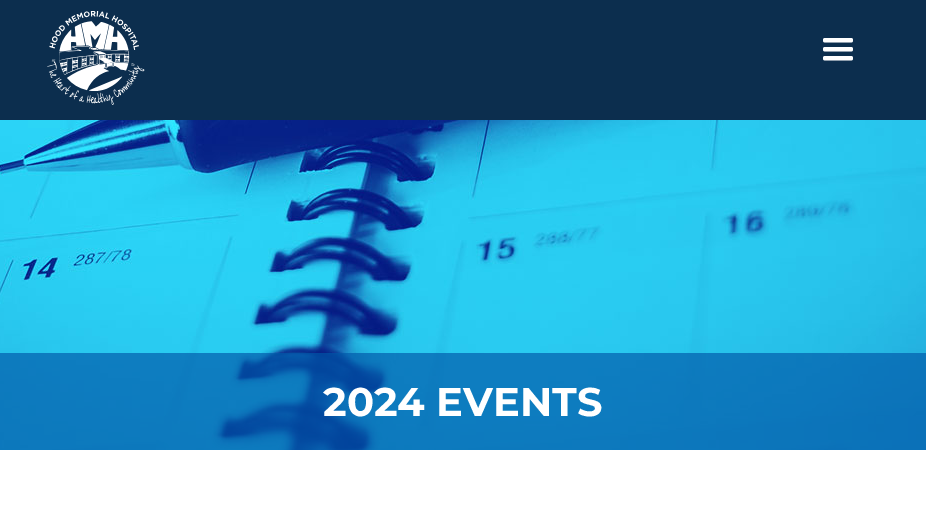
%!PS-Adobe-3.0
%%BoundingBox: 0 0 926 520
%%LanguageLevel: 3
%%Pages: 1
%%EndComments
%%BeginProlog
/setink { dup -16 bitshift 255 div exch dup -8 bitshift 255 and 255 div exch 255 and 255 div setrgbcolor } def
/usefont { [ exch dup neg 0 0 3 -1 roll 0 0 ] selectfont } def
/setalpha { dup .setfillconstantalpha .setstrokeconstantalpha } def
/drawimage { 5 dict begin { /h /w /y /x /name } { exch def } forall
  gsave x y translate w h scale
  w h 8 [w 0 0 h 0 0] name (r) file false 3 colorimage grestore end } def
%%EndProlog
%%BeginSetup
<< /PageSize [926 520] /PageUsesTransparency true >> setpagedevice
%%EndSetup
%%Page: 1 1
0 .pushpdf14devicefilter
0 520 translate 1 -1 scale
4 setmiterlimit
16#FFFFFF setink
0 0 926 520 rectfill
16#0C2E4E setink
0 0 926 120 rectfill
(img1.raw) 47 11 98 94 drawimage
(img2.raw) 823 38 30 23 drawimage
(img3.raw) 0 120 926 330 drawimage
0.67 setalpha
16#0058A9 setink
0 353 926 97 rectfill
/Montserrat-Bold 40 usefont
1 setalpha
16#FFFFFF setink
323 416 moveto (2024 EVENTS) show
.poppdf14devicefilter showpage
%%EOF
